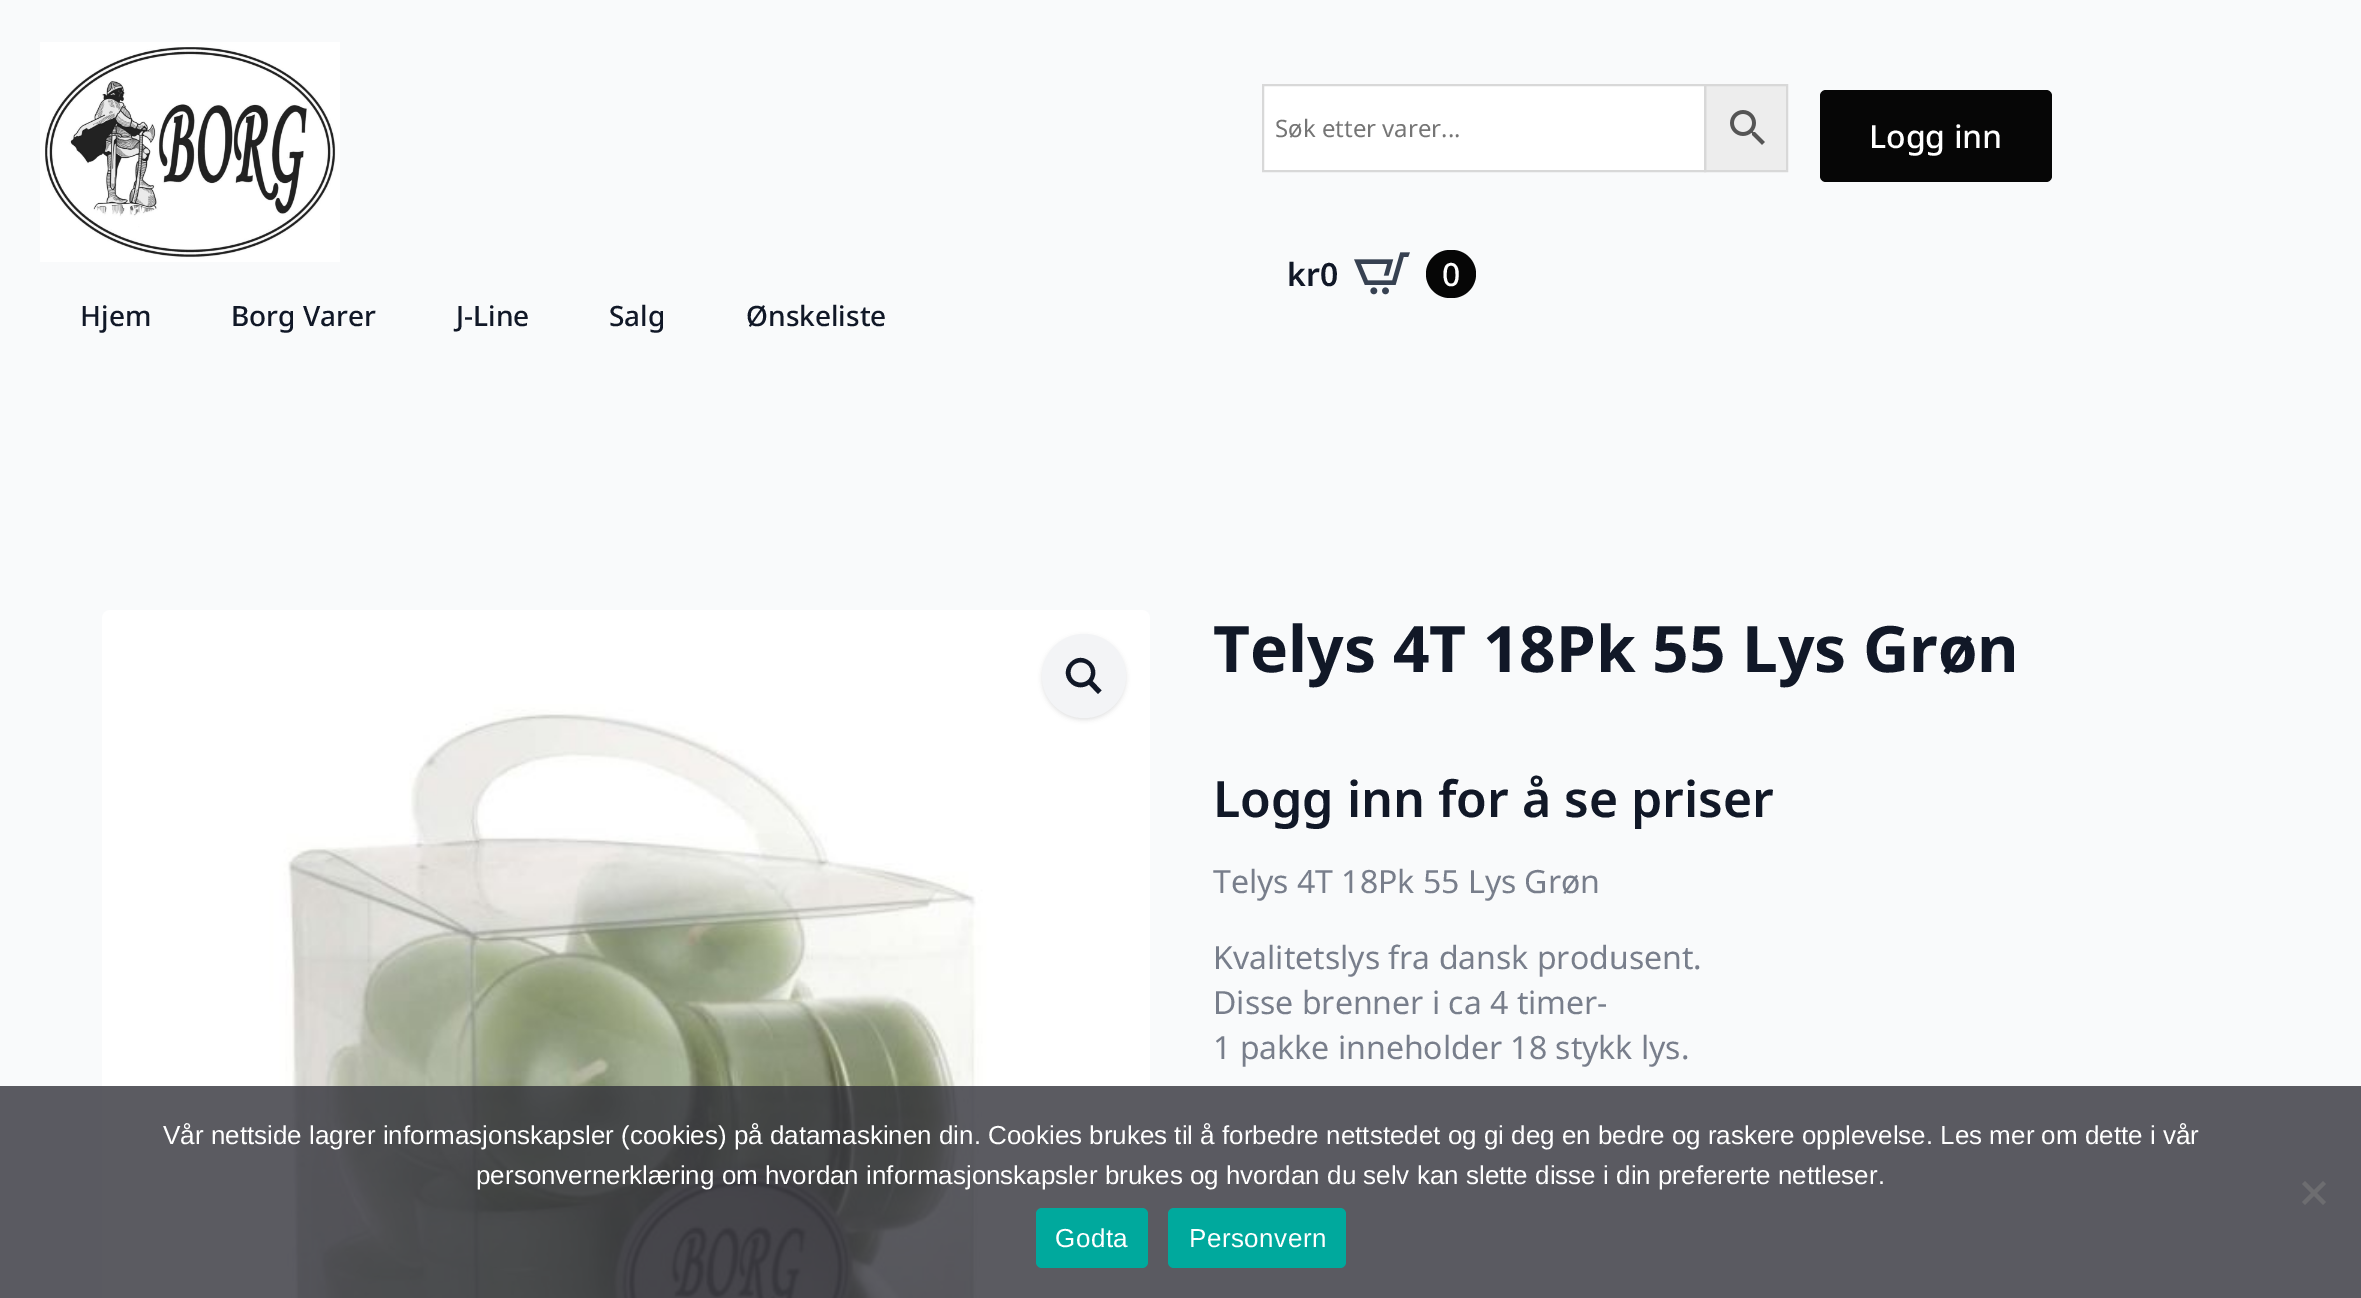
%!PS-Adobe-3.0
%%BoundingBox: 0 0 2361 1298
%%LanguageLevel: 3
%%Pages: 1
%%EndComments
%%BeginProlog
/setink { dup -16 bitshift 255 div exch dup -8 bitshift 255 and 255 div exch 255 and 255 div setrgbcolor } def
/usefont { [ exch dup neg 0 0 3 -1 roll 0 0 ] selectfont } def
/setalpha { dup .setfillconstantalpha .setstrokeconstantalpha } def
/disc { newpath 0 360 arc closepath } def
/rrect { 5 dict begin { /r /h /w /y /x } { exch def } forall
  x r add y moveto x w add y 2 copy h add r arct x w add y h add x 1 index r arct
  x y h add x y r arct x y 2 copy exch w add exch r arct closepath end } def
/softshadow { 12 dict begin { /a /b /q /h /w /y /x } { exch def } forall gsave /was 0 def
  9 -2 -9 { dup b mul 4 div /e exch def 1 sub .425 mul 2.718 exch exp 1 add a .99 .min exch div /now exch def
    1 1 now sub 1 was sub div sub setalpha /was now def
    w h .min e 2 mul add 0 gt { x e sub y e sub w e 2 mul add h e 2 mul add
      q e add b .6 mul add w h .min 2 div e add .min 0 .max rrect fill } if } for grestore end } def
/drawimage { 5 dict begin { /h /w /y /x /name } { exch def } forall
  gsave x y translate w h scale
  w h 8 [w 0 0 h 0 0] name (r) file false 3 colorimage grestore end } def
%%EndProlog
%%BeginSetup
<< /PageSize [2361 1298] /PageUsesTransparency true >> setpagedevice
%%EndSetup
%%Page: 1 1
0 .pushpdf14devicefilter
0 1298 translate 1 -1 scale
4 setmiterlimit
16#F9FAFB setink
0 0 2361 1298 rectfill
16#EDEDED setink
1705 85 moveto 1787 85 lineto 1787 171 lineto 1705 171 lineto closepath gsave fill grestore
16#D8D8D8 setink
2 setlinewidth
stroke
16#FFFFFF setink
1263 85 moveto 1705 85 lineto 1705 171 lineto 1263 171 lineto closepath gsave fill grestore
16#D8D8D8 setink
stroke
/NotoSans-Regular 24 usefont
16#757575 setink
1275 137 moveto (Søk etter varer...) show
(img1.raw) 1730 110 35 35 drawimage
16#060606 setink
1820 90 232 92 6 rrect fill
/NotoSans-Medium 32 usefont
16#FFFFFF setink
1869 148 moveto (Logg inn) show
/NotoSans-SemiBold 32 usefont
16#111827 setink
1287 286 moveto (kr0) show
(img2.raw) 1354 252 56 43 drawimage
16#060606 setink
1426 250 50 48 24 rrect fill
/NotoSans-Medium 32 usefont
16#FFFFFF setink
1442 286 moveto (0) show
(img3.raw) 40 42 300 220 drawimage
/NotoSans-Medium 28 usefont
16#111827 setink
[
    [(Hjem) 80 326]
    [(Borg Varer) 231 326]
    [(J-Line) 456 326]
    [(Salg) 609 326]
    [(Ønskeliste) 746 326]
] { aload pop moveto show } forall
(img4.raw) 102 610 1048 688 drawimage
16#000000 setink
1042 636 84 84 42 2 0.05 softshadow
1042 636 84 84 42 3 0.05 softshadow
16#F3F4F6 setink
1084 676 42 disc fill
16#111827 setink
1101.5 690.5 moveto 1092.5 681 lineto 1102.5 667 1083 649.5 1070.5 662.5 curveto 1057.5 675 1074.5 694.5 1089 684.5 curveto 1098 694 lineto closepath 1070.5 672.5 moveto 1070.5 659 1091 659 1091 672.5 curveto 1091 686 1070.5 686 1070.5 672.5 curveto closepath fill
/NotoSans-Bold 64 usefont
1213 672 moveto (Telys 4T 18Pk 55 Lys Grøn) show
/NotoSans-SemiBold 50 usefont
1213 817 moveto (Logg inn for å se priser) show
/NotoSans-Regular 32 usefont
16#787E8B setink
[
    [(Telys 4T 18Pk 55 Lys Grøn) 1213 893]
    [(Kvalitetslys fra dansk produsent.) 1213 969]
    [(Disse brenner i ca 4 timer-) 1213 1014]
    [(1 pakke inneholder 18 stykk lys.) 1213 1059]
] { aload pop moveto show } forall
0.8 setalpha
16#32323A setink
0 1086 2361 212 rectfill
/LiberationSans-Regular 26 usefont
1 setalpha
16#FFFFFF setink
163 1144 moveto (Vår nettside lagrer informasjonskapsler \(cookies\) på datamaskinen din. Cookies brukes til å forbedre nettstedet og gi deg en bedre og raskere opplevelse. Les mer om dette i vår) show
476 1184 moveto (personvernerklæring om hvordan informasjonskapsler brukes og hvordan du selv kan slette disse i din prefererte nettleser.) show
16#6D6D70 setink
2323 1181 moveto 2326 1184 lineto 2305 1205 lineto 2302 1202 lineto closepath fill
2302 1184 moveto 2305 1181 lineto 2326 1202 lineto 2323 1205 lineto closepath fill
16#00A99D setink
1036 1208 112 60 6 rrect fill
16#FFFFFF setink
1055 1247 moveto 0.5 0 (Godta) ashow
16#00A99D setink
1168 1208 178 60 6 rrect fill
16#FFFFFF setink
1189 1247 moveto 0.5 0 (Personvern) ashow
.poppdf14devicefilter showpage
%%EOF
